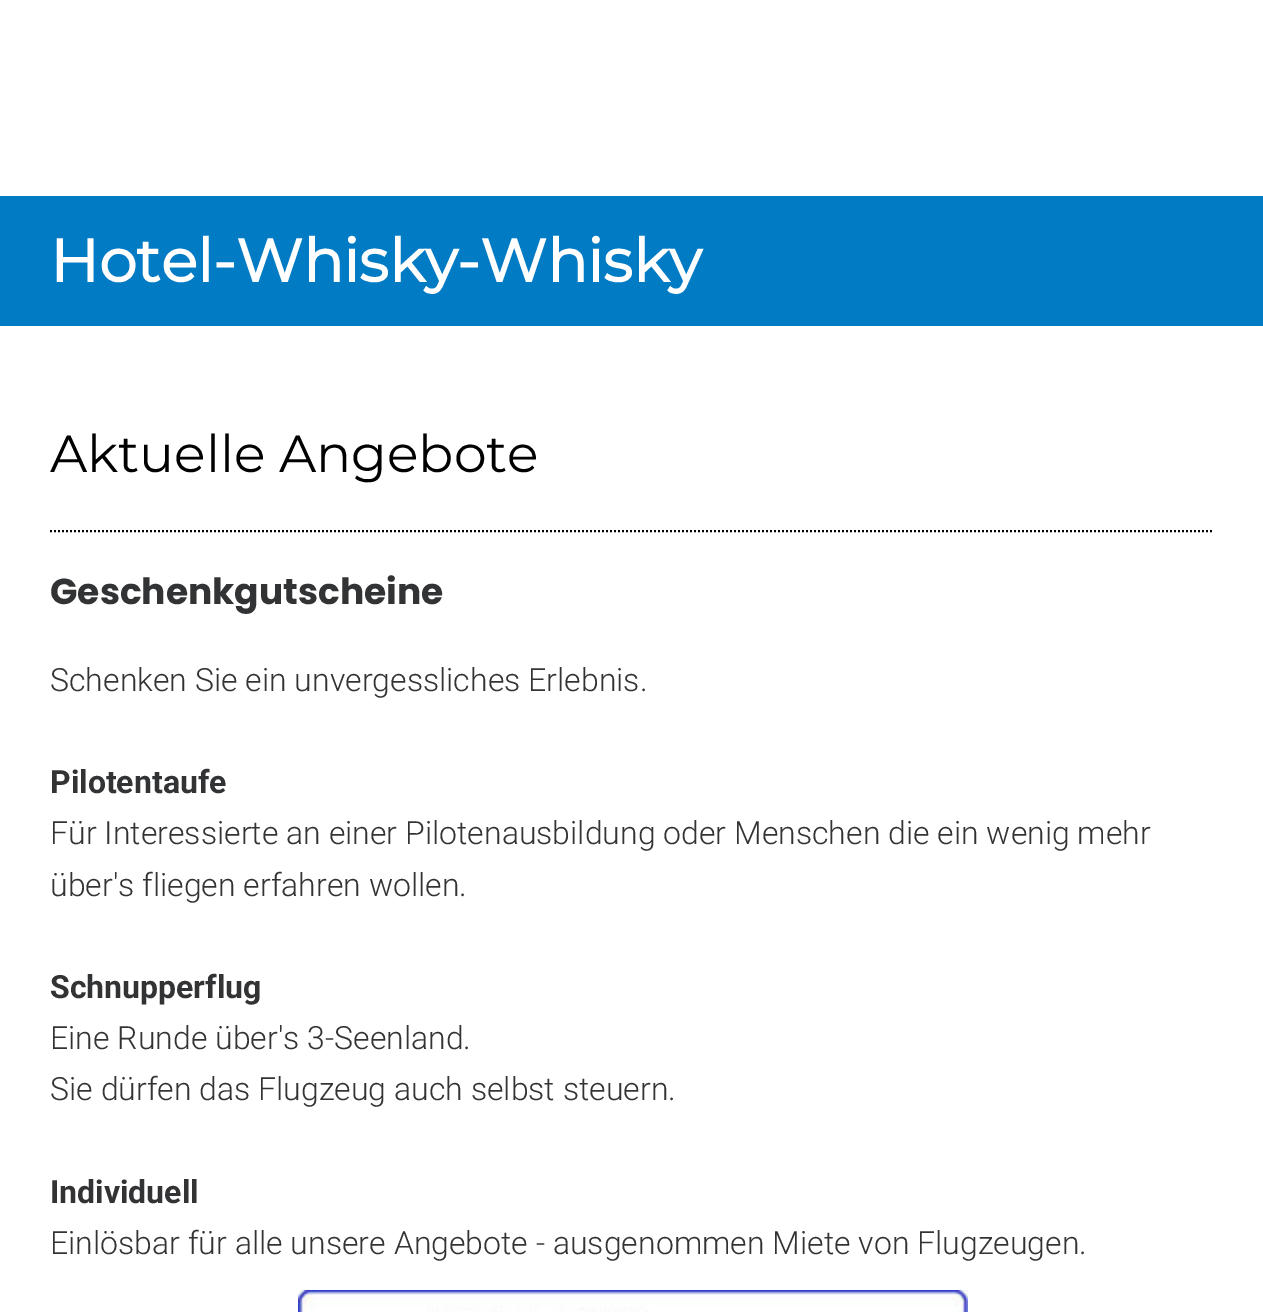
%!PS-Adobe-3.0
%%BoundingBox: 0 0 1263 1312
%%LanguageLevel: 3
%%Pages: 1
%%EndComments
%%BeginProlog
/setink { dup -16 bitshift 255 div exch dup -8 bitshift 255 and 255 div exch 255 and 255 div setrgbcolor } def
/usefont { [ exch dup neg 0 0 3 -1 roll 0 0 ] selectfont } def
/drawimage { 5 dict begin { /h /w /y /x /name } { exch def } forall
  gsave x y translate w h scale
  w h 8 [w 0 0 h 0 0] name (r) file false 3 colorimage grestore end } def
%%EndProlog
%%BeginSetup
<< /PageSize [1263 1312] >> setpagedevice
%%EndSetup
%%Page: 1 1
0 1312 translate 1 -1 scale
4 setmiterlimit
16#FFFFFF setink
0 0 1263 1312 rectfill
16#027BC5 setink
0 196 1263 130 rectfill
/Montserrat-Bold 60 usefont
16#FFFFFF setink
50 282 moveto (Hotel-Whisky-Whisky) show
/Montserrat-Thin 52 usefont
16#000000 setink
50 472 moveto (Aktuelle Angebote) show
2 setlinewidth
[2 2] 0 setdash
50 531 moveto 1214 531 lineto stroke
/Poppins-Bold 36 usefont
16#323335 setink
50 604 moveto (Geschenkgutscheine) show
/Roboto-Light 32 usefont
50 691 moveto (Schenken Sie ein unvergessliches Erlebnis.) show
/Roboto-Bold 32 usefont
50 793 moveto (Pilotentaufe) show
/Roboto-Light 32 usefont
50 844 moveto (Für Interessierte an einer Pilotenausbildung oder Menschen die ein wenig mehr) show
50 896 moveto (über's fliegen erfahren wollen.) show
/Roboto-Bold 32 usefont
50 998 moveto (Schnupperflug) show
/Roboto-Light 32 usefont
50 1049 moveto (Eine Runde über's 3-Seenland.) show
50 1100 moveto (Sie dürfen das Flugzeug auch selbst steuern.) show
/Roboto-Bold 32 usefont
50 1203 moveto (Individuell) show
/Roboto-Light 32 usefont
50 1254 moveto (Einlösbar für alle unsere Angebote - ausgenommen Miete von Flugzeugen.) show
(img1.raw) 298 1290 670 22 drawimage
showpage
%%EOF
